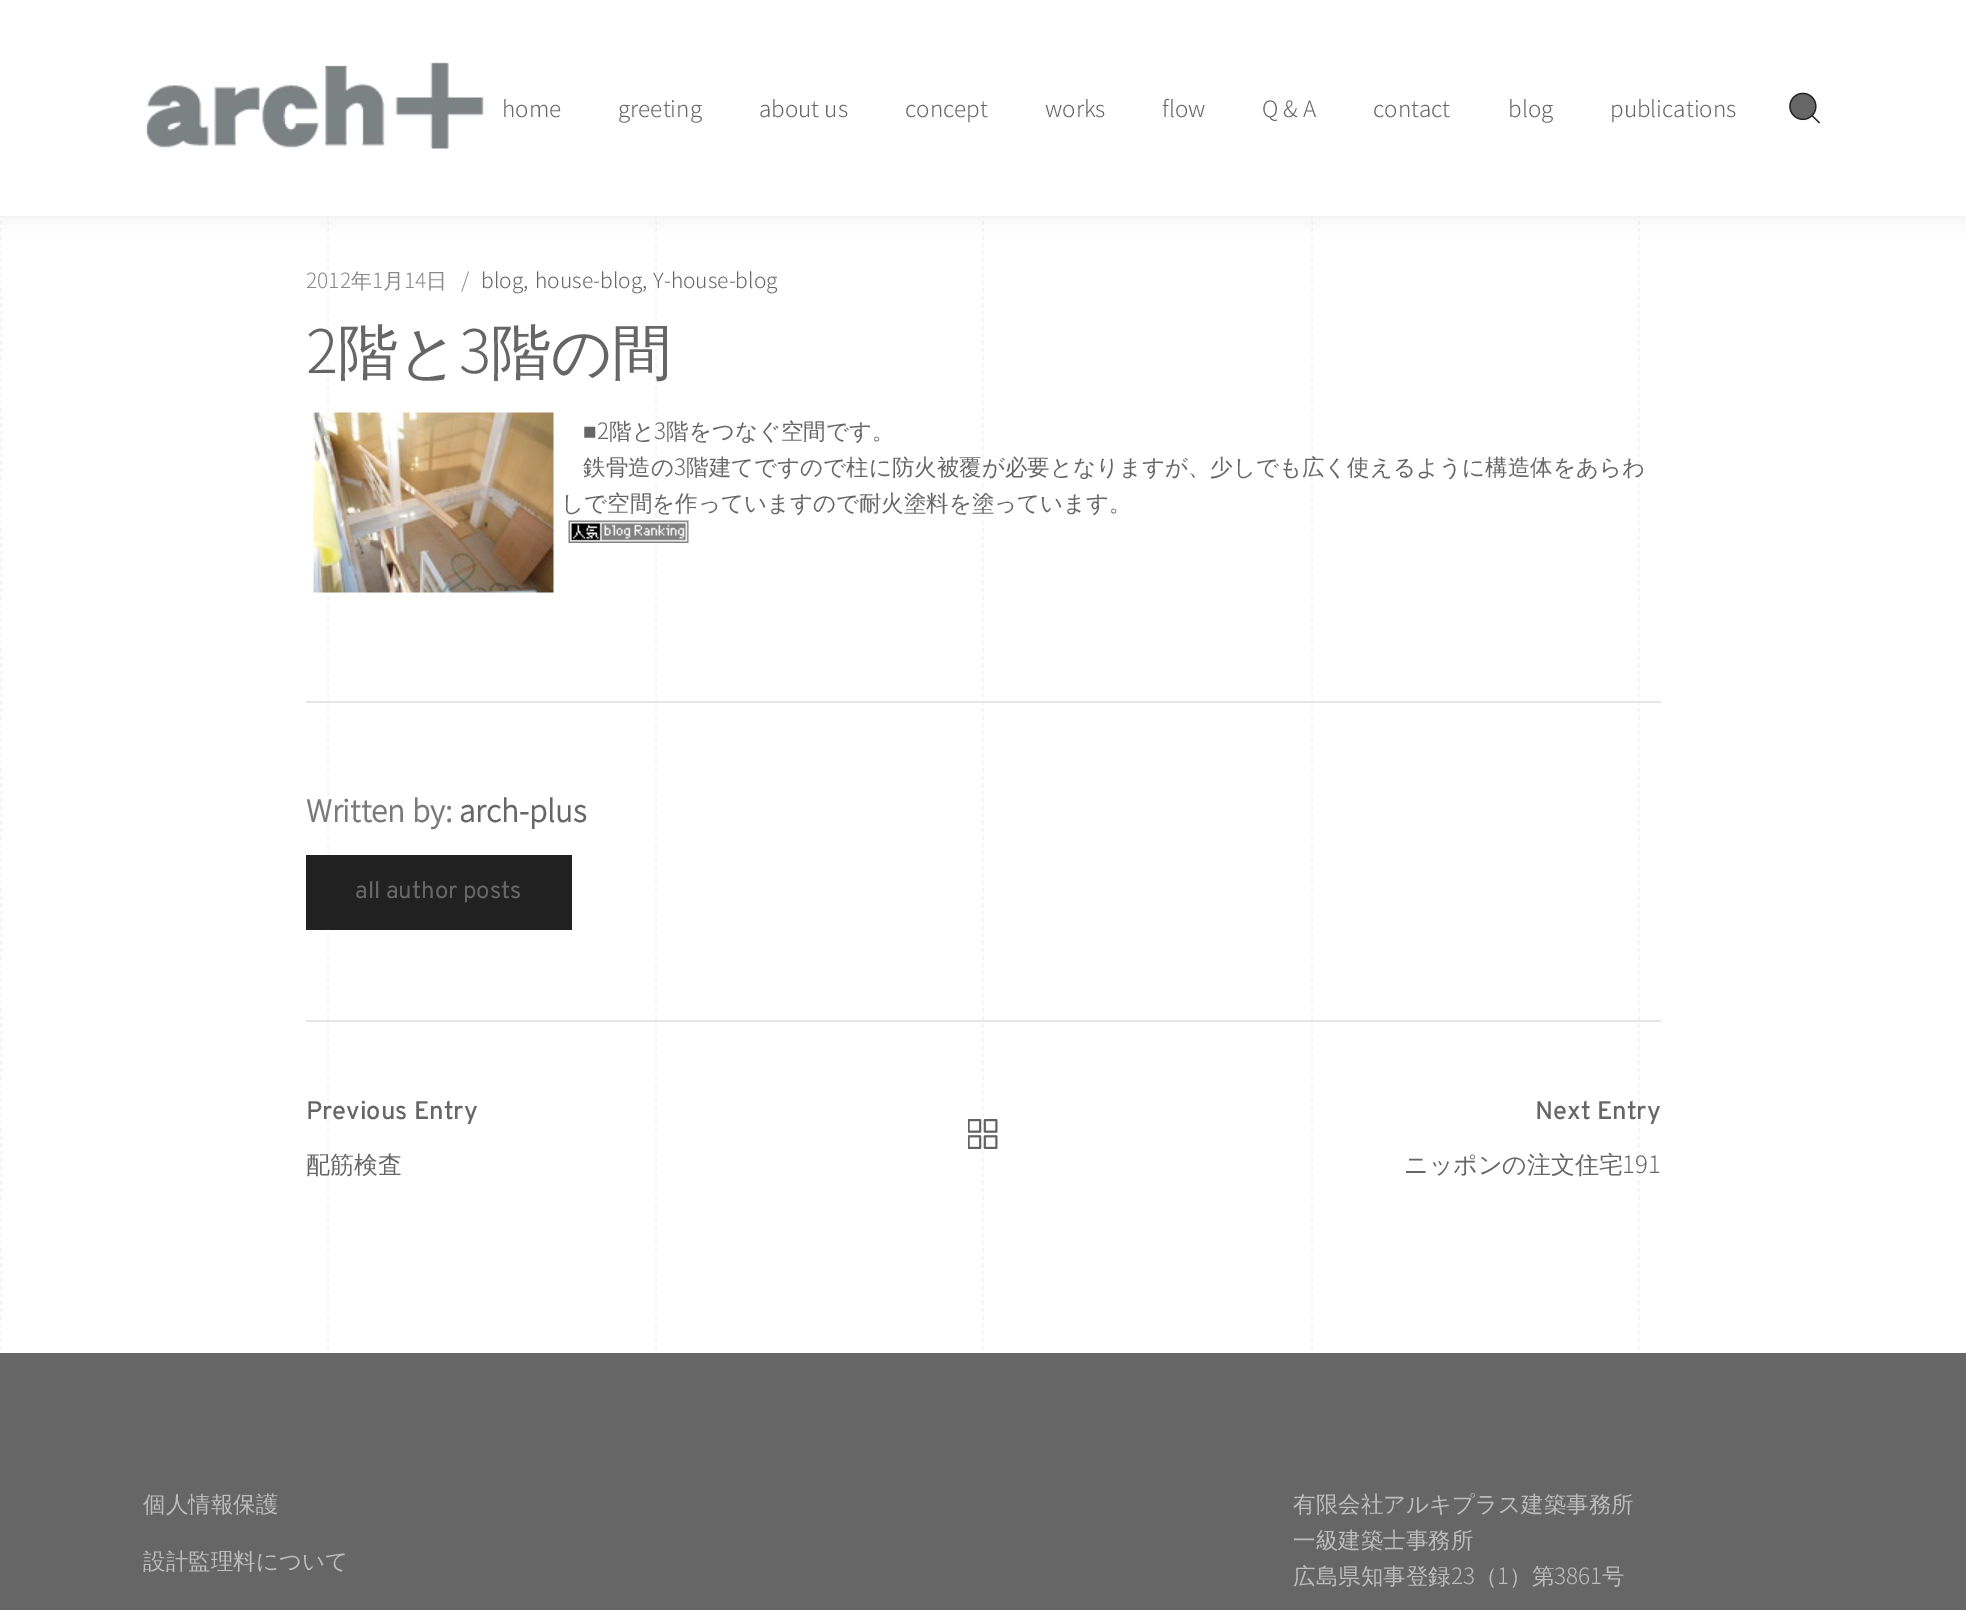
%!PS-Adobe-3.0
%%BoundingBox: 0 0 1966 1610
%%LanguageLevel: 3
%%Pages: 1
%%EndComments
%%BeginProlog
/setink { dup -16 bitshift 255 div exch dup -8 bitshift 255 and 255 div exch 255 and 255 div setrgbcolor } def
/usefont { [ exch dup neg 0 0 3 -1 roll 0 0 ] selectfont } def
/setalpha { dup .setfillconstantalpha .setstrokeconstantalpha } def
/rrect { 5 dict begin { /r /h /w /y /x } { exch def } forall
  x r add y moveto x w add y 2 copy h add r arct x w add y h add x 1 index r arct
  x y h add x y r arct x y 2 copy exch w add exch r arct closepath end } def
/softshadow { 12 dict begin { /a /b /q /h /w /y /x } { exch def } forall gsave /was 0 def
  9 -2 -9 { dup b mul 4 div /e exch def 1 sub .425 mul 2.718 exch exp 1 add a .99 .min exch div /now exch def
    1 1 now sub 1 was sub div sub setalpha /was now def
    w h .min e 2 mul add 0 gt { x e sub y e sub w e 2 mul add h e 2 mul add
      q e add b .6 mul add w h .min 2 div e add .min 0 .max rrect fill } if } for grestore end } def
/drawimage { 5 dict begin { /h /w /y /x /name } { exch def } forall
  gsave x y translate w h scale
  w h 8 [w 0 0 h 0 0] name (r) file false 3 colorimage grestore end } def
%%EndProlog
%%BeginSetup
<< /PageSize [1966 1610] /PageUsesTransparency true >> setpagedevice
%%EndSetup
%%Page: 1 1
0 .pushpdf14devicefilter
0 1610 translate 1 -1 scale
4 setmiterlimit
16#FFFFFF setink
0 0 1966 1610 rectfill
16#F4F4F4 setink
1.5 setlinewidth
[4.5 3] 0 setdash
1 -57 moveto 1 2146.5 lineto stroke
328 -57 moveto 328 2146.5 lineto stroke
656 -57 moveto 656 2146.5 lineto stroke
983 -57 moveto 983 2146.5 lineto stroke
1312 -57 moveto 1312 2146.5 lineto stroke
1639 -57 moveto 1639 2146.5 lineto stroke
16#9D9D9D setink
0 0 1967 216 0 11 0.18 softshadow
16#FFFFFF setink
0 0 1966 216 rectfill
(img1.raw) 146 62 338 87 drawimage
/NotoSansJP-Light 22.5 usefont
16#666666 setink
[
    [(home) 502 117]
    [(greeting) 618 117]
    [(about us) 759 117]
    [(concept) 905 117]
    [(works) 1045 117]
    [(flow) 1162 117]
    [(Q & A) 1262 117]
    [(contact) 1373 117]
    [(blog) 1508 117]
    [(publications) 1610 117]
] { aload pop moveto show } forall
(img2.raw) 1789 92 31 32 drawimage
/NotoSansJP-Light 21 usefont
16#898989 setink
306 288 moveto (2012) show
/WenQuanYiZenHei-Medium 21 usefont
351 288 moveto (年) show
/NotoSansJP-Light 21 usefont
372 288 moveto (1) show
/WenQuanYiZenHei-Medium 21 usefont
383 288 moveto (月) show
/NotoSansJP-Light 21 usefont
404 288 moveto (14) show
/WenQuanYiZenHei-Medium 21 usefont
426 288 moveto (日) show
/NotoSansJP-Light 21 usefont
461 288 moveto (/) show
16#666666 setink
[
    [(blog,) 481 288]
    [(house-blog,) 535 288]
    [(Y-house-blog) 653 288]
] { aload pop moveto show } forall
/NotoSansJP-Light 60 usefont
306 373 moveto (2) show
/WenQuanYiZenHei-Medium 60 usefont
338 373 moveto (階と) show
/NotoSansJP-Light 60 usefont
459 373 moveto (3) show
/WenQuanYiZenHei-Medium 60 usefont
491 373 moveto (階の間) show
(img3.raw) 313 412 241 181 drawimage
/LiberationSerif-Regular 22.5 usefont
583 439 moveto (■) show
/NotoSansJP-Light 22.5 usefont
597 439 moveto (2) show
/WenQuanYiZenHei-Medium 22.5 usefont
609 439 moveto (階と) show
/NotoSansJP-Light 22.5 usefont
654 439 moveto (3) show
/WenQuanYiZenHei-Medium 22.5 usefont
666 439 moveto (階をつなぐ空間です。) show
583 475 moveto (鉄骨造の) show
/NotoSansJP-Light 22.5 usefont
674 475 moveto (3) show
/WenQuanYiZenHei-Medium 22.5 usefont
686 475 moveto (階建てですので柱に防火被覆が必要となりますが、少しでも広く使えるように構造体をあらわ) show
561 511 moveto (しで空間を作っていますので耐火塗料を塗っています。) show
(img4.raw) 568 520 121 23 drawimage
16#E5E5E5 setink
306 701 1355 2 rectfill
/NotoSansJP-Bold 30 usefont
16#7A7A7A setink
306 822 moveto (Written by:) show
16#666666 setink
459 822 moveto (arch-plus) show
16#212121 setink
306 855 266 75 rectfill
/Overpass-Regular 24 usefont
16#666666 setink
355 898 moveto (all author posts) show
16#E5E5E5 setink
306 1020 1355 2 rectfill
/Overpass-Medium 25.5 usefont
16#666666 setink
306 1119 moveto (Previous Entry) show
/WenQuanYiZenHei-Medium 24 usefont
306 1173 moveto (配筋検査) show
(img5.raw) 968 1119 30 30 drawimage
/Overpass-Medium 25.5 usefont
1535 1119 moveto (Next Entry) show
/WenQuanYiZenHei-Medium 24 usefont
1404 1173 moveto (ニッポンの注文住宅) show
/NotoSansJP-Light 24 usefont
1622 1173 moveto (191) show
0 1353 1966 257 rectfill
/WenQuanYiZenHei-Medium 22.5 usefont
16#BDBDBD setink
[
    [(個人情報保護) 143 1512]
    [(設計監理料について) 143 1569]
    [(有限会社アルキプラス建築事務所) 1293 1512]
    [(一級建築士事務所) 1293 1548]
    [(広島県知事登録) 1293 1584]
] { aload pop moveto show } forall
/NotoSansJP-Light 22.5 usefont
1451 1584 moveto (23) show
/WenQuanYiZenHei-Medium 22.5 usefont
1475 1584 moveto (（) show
/NotoSansJP-Light 22.5 usefont
1497 1584 moveto (1) show
/WenQuanYiZenHei-Medium 22.5 usefont
1509 1584 moveto (）第) show
/NotoSansJP-Light 22.5 usefont
1554 1584 moveto (3861) show
/WenQuanYiZenHei-Medium 22.5 usefont
1602 1584 moveto (号) show
.poppdf14devicefilter showpage
%%EOF
